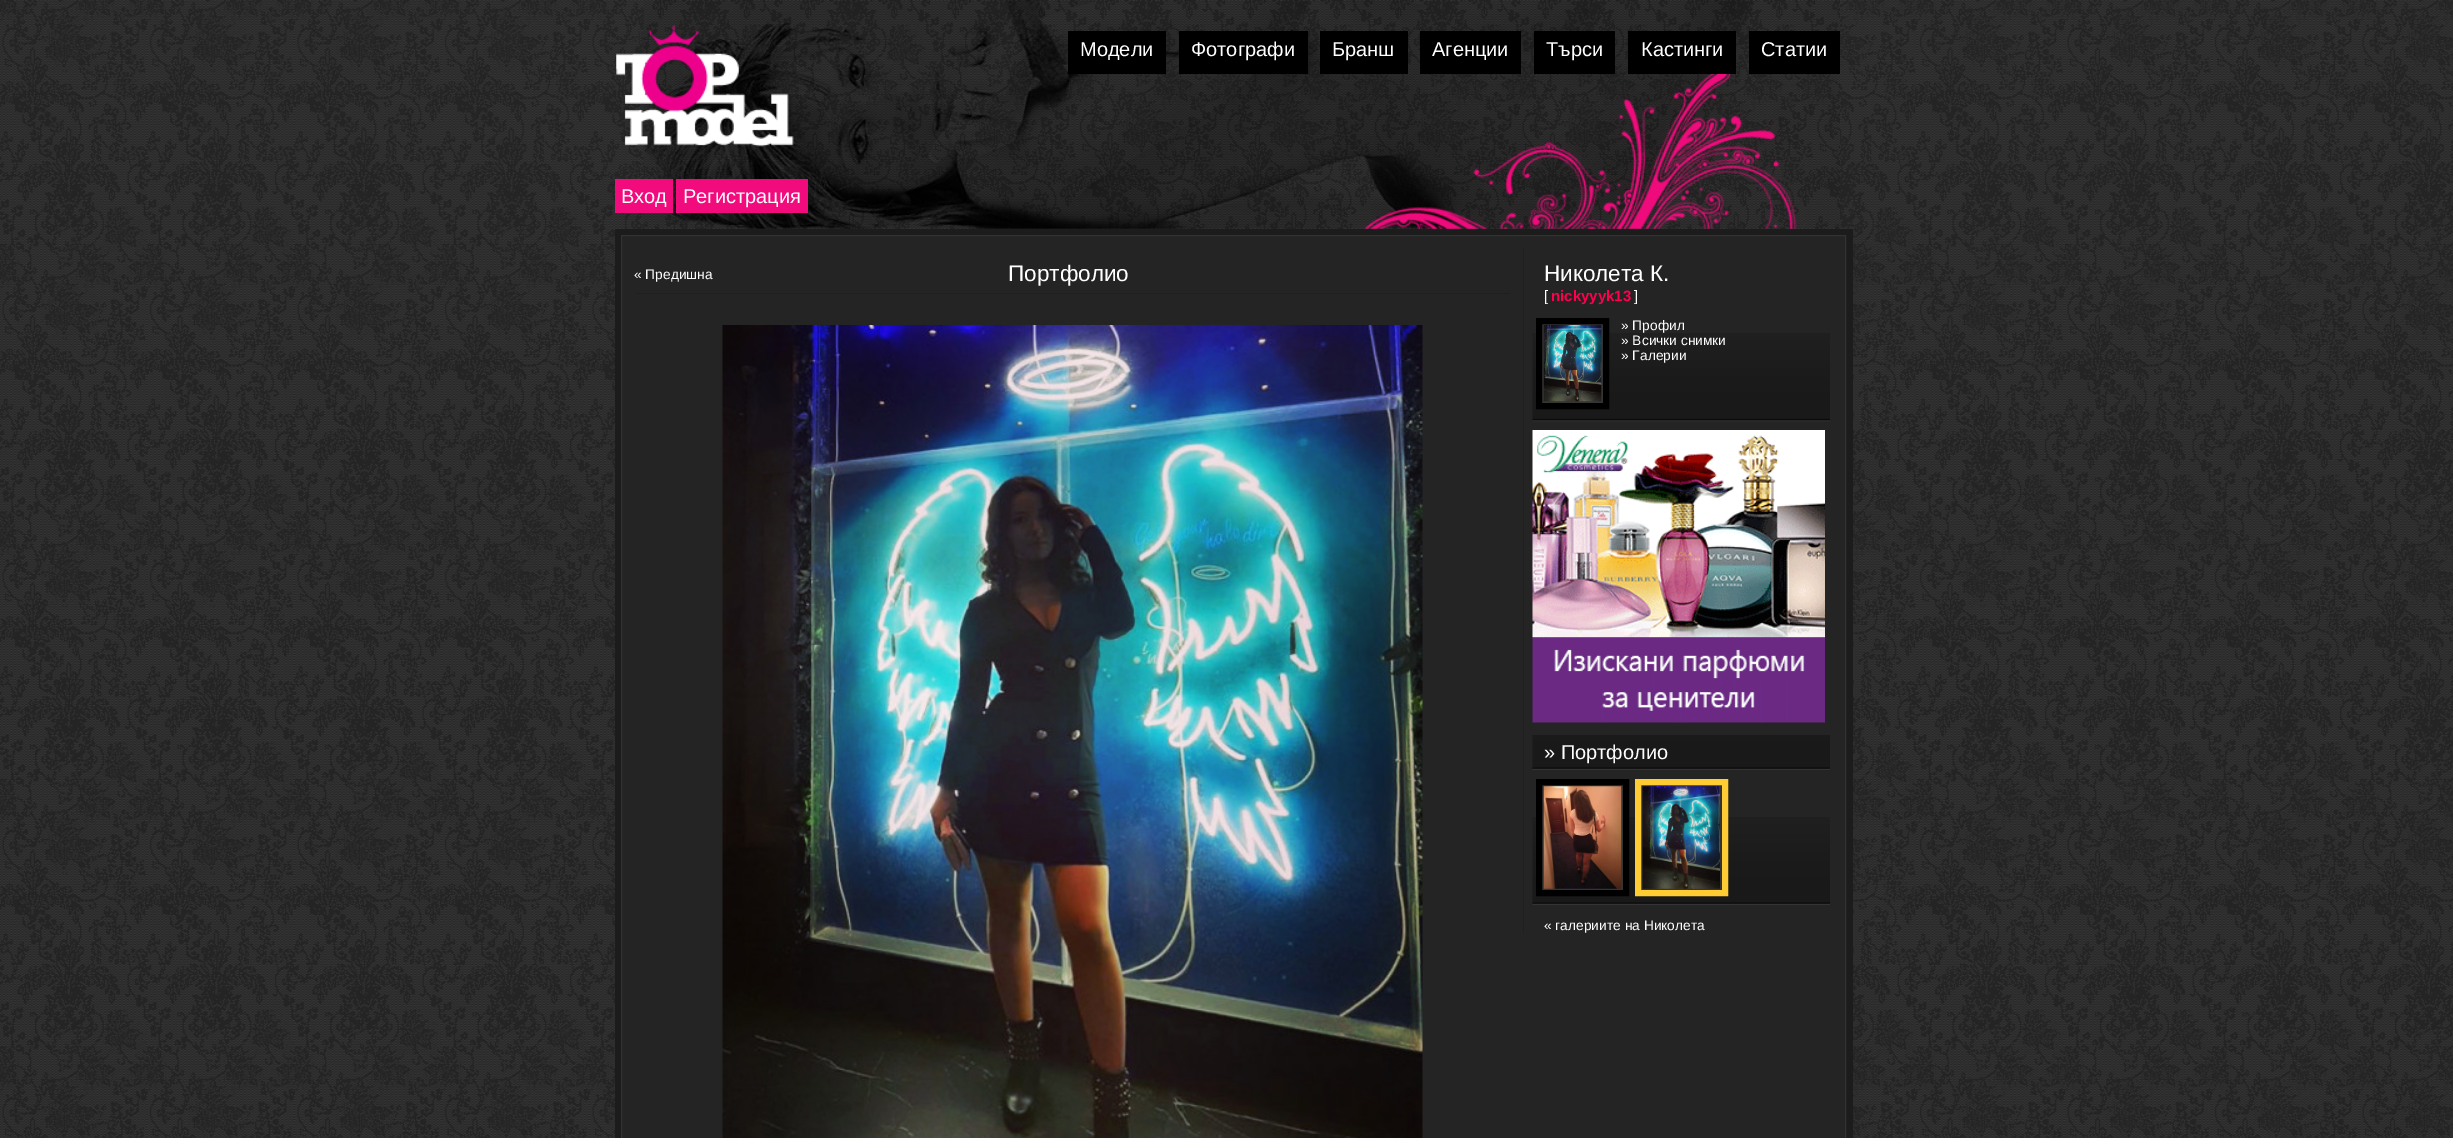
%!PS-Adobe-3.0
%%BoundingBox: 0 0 2453 1138
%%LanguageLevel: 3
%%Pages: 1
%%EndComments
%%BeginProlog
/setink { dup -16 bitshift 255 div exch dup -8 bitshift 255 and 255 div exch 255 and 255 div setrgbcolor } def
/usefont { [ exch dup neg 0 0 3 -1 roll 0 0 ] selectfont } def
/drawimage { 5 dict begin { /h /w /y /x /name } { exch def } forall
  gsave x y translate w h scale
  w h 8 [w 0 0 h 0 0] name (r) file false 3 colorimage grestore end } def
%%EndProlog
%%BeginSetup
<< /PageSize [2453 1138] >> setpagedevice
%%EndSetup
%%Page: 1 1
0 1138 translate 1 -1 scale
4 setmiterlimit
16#FFFFFF setink
0 0 2453 1138 rectfill
(img1.raw) 0 0 2453 1138 drawimage
(img2.raw) 643 0 1197 229 drawimage
(img3.raw) 616 25 178 122 drawimage
16#000000 setink
1068 31 98 43 rectfill
/LiberationSans-Regular 20 usefont
16#FFFFFF setink
1080 56 moveto (Модели) show
16#000000 setink
1179 31 129 43 rectfill
16#FFFFFF setink
1191 56 moveto (Фотографи) show
16#000000 setink
1320 31 88 43 rectfill
16#FFFFFF setink
1332 56 moveto (Бранш) show
16#000000 setink
1420 31 101 43 rectfill
16#FFFFFF setink
1432 56 moveto (Агенции) show
16#000000 setink
1534 31 81 43 rectfill
16#FFFFFF setink
1546 56 moveto (Търси) show
16#000000 setink
1628 31 108 43 rectfill
16#FFFFFF setink
1641 56 moveto (Кастинги) show
16#000000 setink
1749 31 91 43 rectfill
16#FFFFFF setink
1761 56 moveto (Статии) show
16#F10B7D setink
615 179 58 34 rectfill
16#FFFFFF setink
621 203 moveto (Вход) show
16#F10B7D setink
676 179 132 34 rectfill
16#FFFFFF setink
683 203 moveto (Регистрация) show
16#1C1C1C setink
615 229 1238 909 rectfill
16#242424 setink
621.5 235.5 moveto 1845.5 235.5 lineto 1845.5 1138.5 lineto 621.5 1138.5 lineto closepath gsave fill grestore
16#323232 setink
stroke
/LiberationSans-Regular 13.75 usefont
16#FFFFFF setink
634 279 moveto (« Предишна) show
16#1F1F1F setink
635 293 875 1 rectfill
/LiberationSans-Regular 22.5 usefont
16#FFFFFF setink
1008 281 moveto (Портфолио) show
(img4.raw) 722 325 701 813 drawimage
16#1F1F1F setink
1523 249 1 684 rectfill
(img5.raw) 1532 333 298 89 drawimage
16#FFFFFF setink
1544 281 moveto (Николета К.) show
/LiberationSans-Regular 15 usefont
1544 301 moveto ([) show
/LiberationSans-Bold 15 usefont
16#FF004E setink
1551 301 moveto (nickyyyk13) show
/LiberationSans-Regular 15 usefont
16#FFFFFF setink
1634 301 moveto (]) show
16#343434 setink
1539 321 moveto 1606 321 lineto 1606 406 lineto 1539 406 lineto closepath gsave fill grestore
16#000000 setink
6 setlinewidth
stroke
(img6.raw) 1543 325 59 77 drawimage
/LiberationSans-Regular 13.75 usefont
16#FFFFFF setink
[
    [(» Профил) 1621 330]
    [(» Всички снимки) 1621 345]
    [(» Галерии) 1621 360]
] { aload pop moveto show } forall
(img7.raw) 1532 430 293 293 drawimage
(img8.raw) 1532 735 298 35 drawimage
/LiberationSans-Regular 20 usefont
1544 759 moveto (» Портфолио) show
(img9.raw) 1532 817 298 88 drawimage
16#343434 setink
1539 782 moveto 1626 782 lineto 1626 893 lineto 1539 893 lineto closepath gsave fill grestore
16#000000 setink
stroke
(img10.raw) 1543 786 79 103 drawimage
16#343434 setink
1638 782 moveto 1725 782 lineto 1725 893 lineto 1638 893 lineto closepath gsave fill grestore
16#FFCC33 setink
stroke
(img11.raw) 1642 786 78 103 drawimage
/LiberationSans-Regular 13.75 usefont
16#FFFFFF setink
1544 930 moveto (« галериите на Николета) show
showpage
%%EOF
